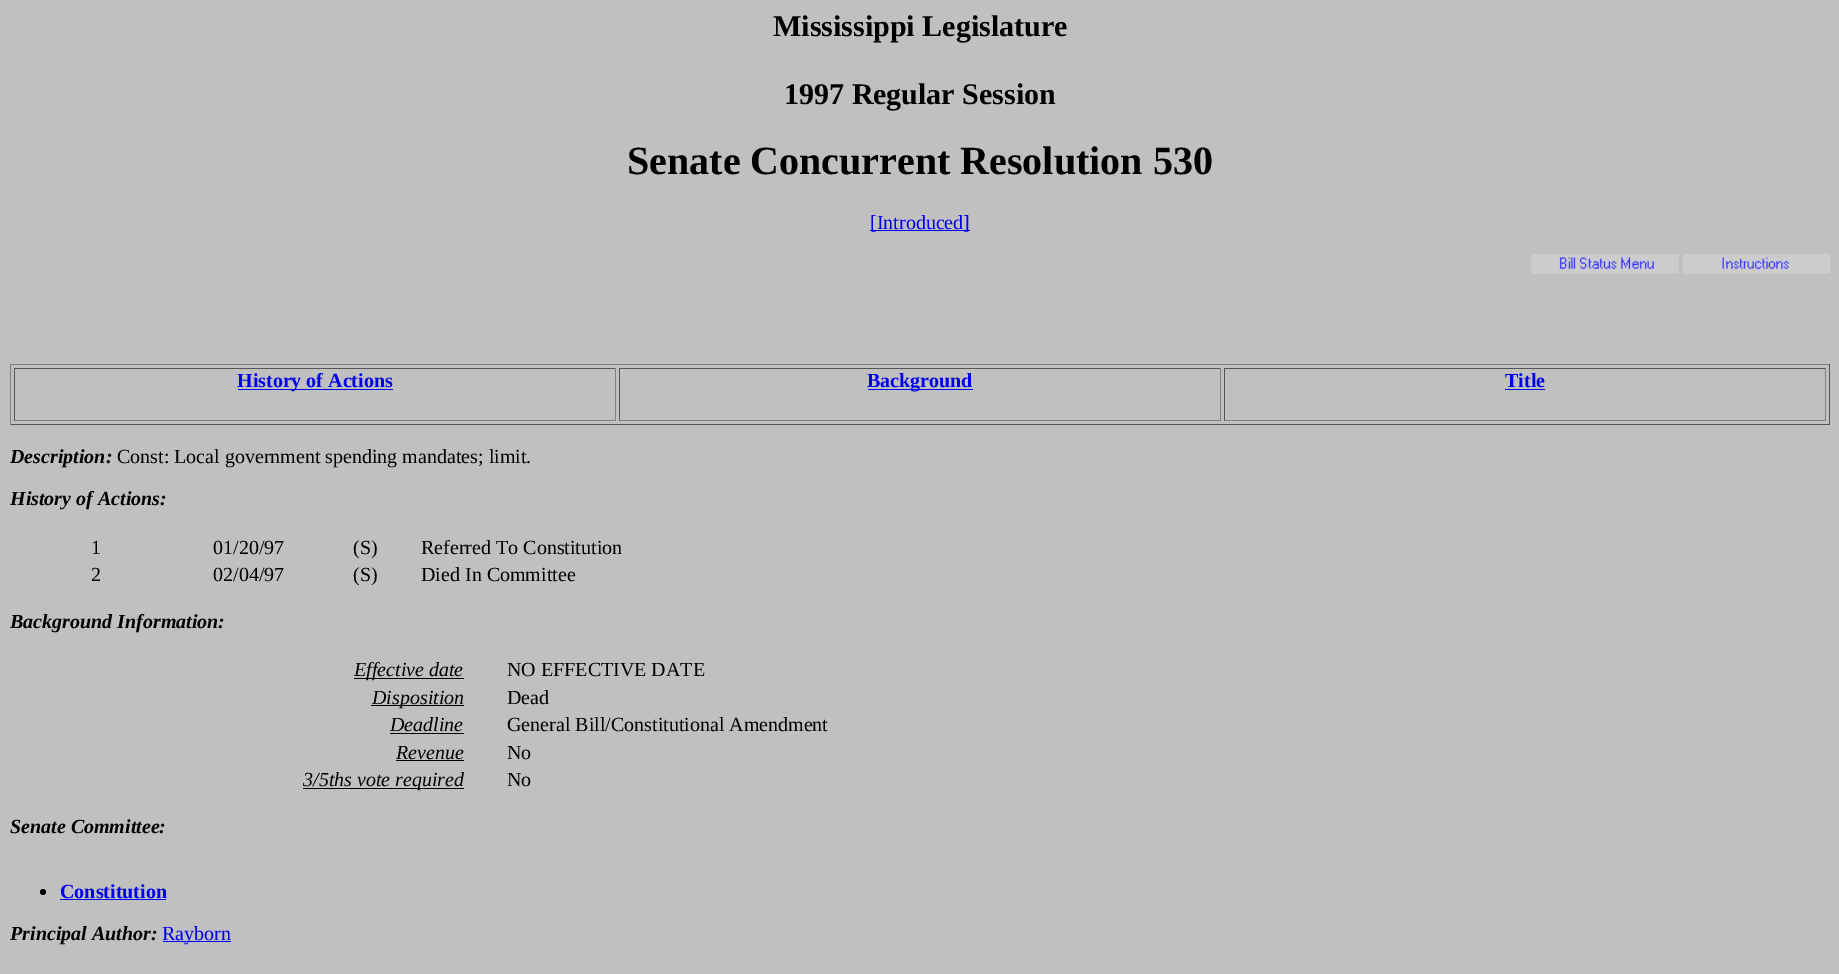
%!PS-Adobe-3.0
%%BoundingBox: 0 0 1839 974
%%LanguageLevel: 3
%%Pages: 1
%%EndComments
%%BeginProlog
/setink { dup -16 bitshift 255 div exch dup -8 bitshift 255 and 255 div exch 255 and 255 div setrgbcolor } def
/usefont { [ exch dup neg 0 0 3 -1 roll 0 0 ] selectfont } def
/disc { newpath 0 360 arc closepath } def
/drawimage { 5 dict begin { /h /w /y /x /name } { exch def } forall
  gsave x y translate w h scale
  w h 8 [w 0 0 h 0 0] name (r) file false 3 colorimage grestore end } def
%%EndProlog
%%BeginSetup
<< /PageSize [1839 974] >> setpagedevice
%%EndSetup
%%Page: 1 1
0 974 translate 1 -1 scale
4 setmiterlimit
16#C0C0C0 setink
0 0 1839 974 rectfill
/LiberationSerif-Bold 30 usefont
16#000000 setink
773 36 moveto (Mississippi Legislature) show
784 104 moveto (1997 Regular Session) show
/LiberationSerif-Bold 40 usefont
627 174 moveto (Senate Concurrent Resolution 530) show
16#0000EE setink
870 230 100 1 rectfill
/LiberationSerif-Regular 20 usefont
870 229 moveto ([Introduced]) show
(img1.raw) 1531 254 148 20 drawimage
(img2.raw) 1682 254 148 20 drawimage
[
    [10 364 1820 1 16#808080]
    [1829 364 1 61 16#555555]
    [10 424 1820 1 16#555555]
    [10 364 1 61 16#808080]
    [14 368 602 1 16#555555]
    [615 368 1 53 16#808080]
    [14 420 602 1 16#808080]
    [14 368 1 53 16#555555]
    [238 389 155 1 16#0000EE]
] { aload pop setink rectfill } forall
/LiberationSerif-Bold 20 usefont
237 387 moveto (History of Actions) show
[
    [619 368 602 1 16#555555]
    [1220 368 1 53 16#808080]
    [619 420 602 1 16#808080]
    [619 368 1 53 16#555555]
    [868 389 105 1 16#0000EE]
] { aload pop setink rectfill } forall
867 387 moveto (Background) show
[
    [1224 368 602 1 16#555555]
    [1825 368 1 53 16#808080]
    [1224 420 602 1 16#808080]
    [1224 368 1 53 16#555555]
] { aload pop setink rectfill } forall
16#0000EE setink
1505 387 moveto (Title) show
1505 389 40 1 rectfill
/LiberationSerif-BoldItalic 20 usefont
16#000000 setink
10 463 moveto (Description:) show
/LiberationSerif-Regular 20 usefont
117 463 moveto (Const: Local government spending mandates; limit.) show
/LiberationSerif-BoldItalic 20 usefont
10 505 moveto (History of Actions:) show
/LiberationSerif-Regular 20 usefont
[
    [(1) 91 554]
    [(01/20/97) 213 554]
    [(\(S\)) 353 554]
    [(Referred To Constitution) 421 554]
    [(2) 91 581]
    [(02/04/97) 213 581]
    [(\(S\)) 353 581]
    [(Died In Committee) 421 581]
] { aload pop moveto show } forall
/LiberationSerif-BoldItalic 20 usefont
10 628 moveto (Background Information:) show
354 678 110 1 rectfill
/LiberationSerif-Italic 20 usefont
354 676 moveto (Effective date) show
/LiberationSerif-Regular 20 usefont
507 676 moveto (NO EFFECTIVE DATE) show
371 705 93 1 rectfill
/LiberationSerif-Italic 20 usefont
372 704 moveto (Disposition) show
/LiberationSerif-Regular 20 usefont
507 704 moveto (Dead) show
/LiberationSerif-Italic 20 usefont
390 731 moveto (Deadline) show
390 733 74 1 rectfill
/LiberationSerif-Regular 20 usefont
507 731 moveto (General Bill/Constitutional Amendment) show
/LiberationSerif-Italic 20 usefont
396 759 moveto (Revenue) show
396 760 68 1 rectfill
/LiberationSerif-Regular 20 usefont
507 759 moveto (No) show
303 788 161 1 rectfill
/LiberationSerif-Italic 20 usefont
303 786 moveto (3/5ths vote required) show
/LiberationSerif-Regular 20 usefont
507 786 moveto (No) show
/LiberationSerif-BoldItalic 20 usefont
10 833 moveto (Senate Committee:) show
43 892 3 disc fill
/LiberationSerif-Bold 20 usefont
16#0000EE setink
60 898 moveto (Constitution) show
60 899 106 1 rectfill
/LiberationSerif-BoldItalic 20 usefont
16#000000 setink
10 940 moveto (Principal Author:) show
16#0000EE setink
163 941 68 1 rectfill
/LiberationSerif-Regular 20 usefont
162 940 moveto (Rayborn) show
showpage
%%EOF
